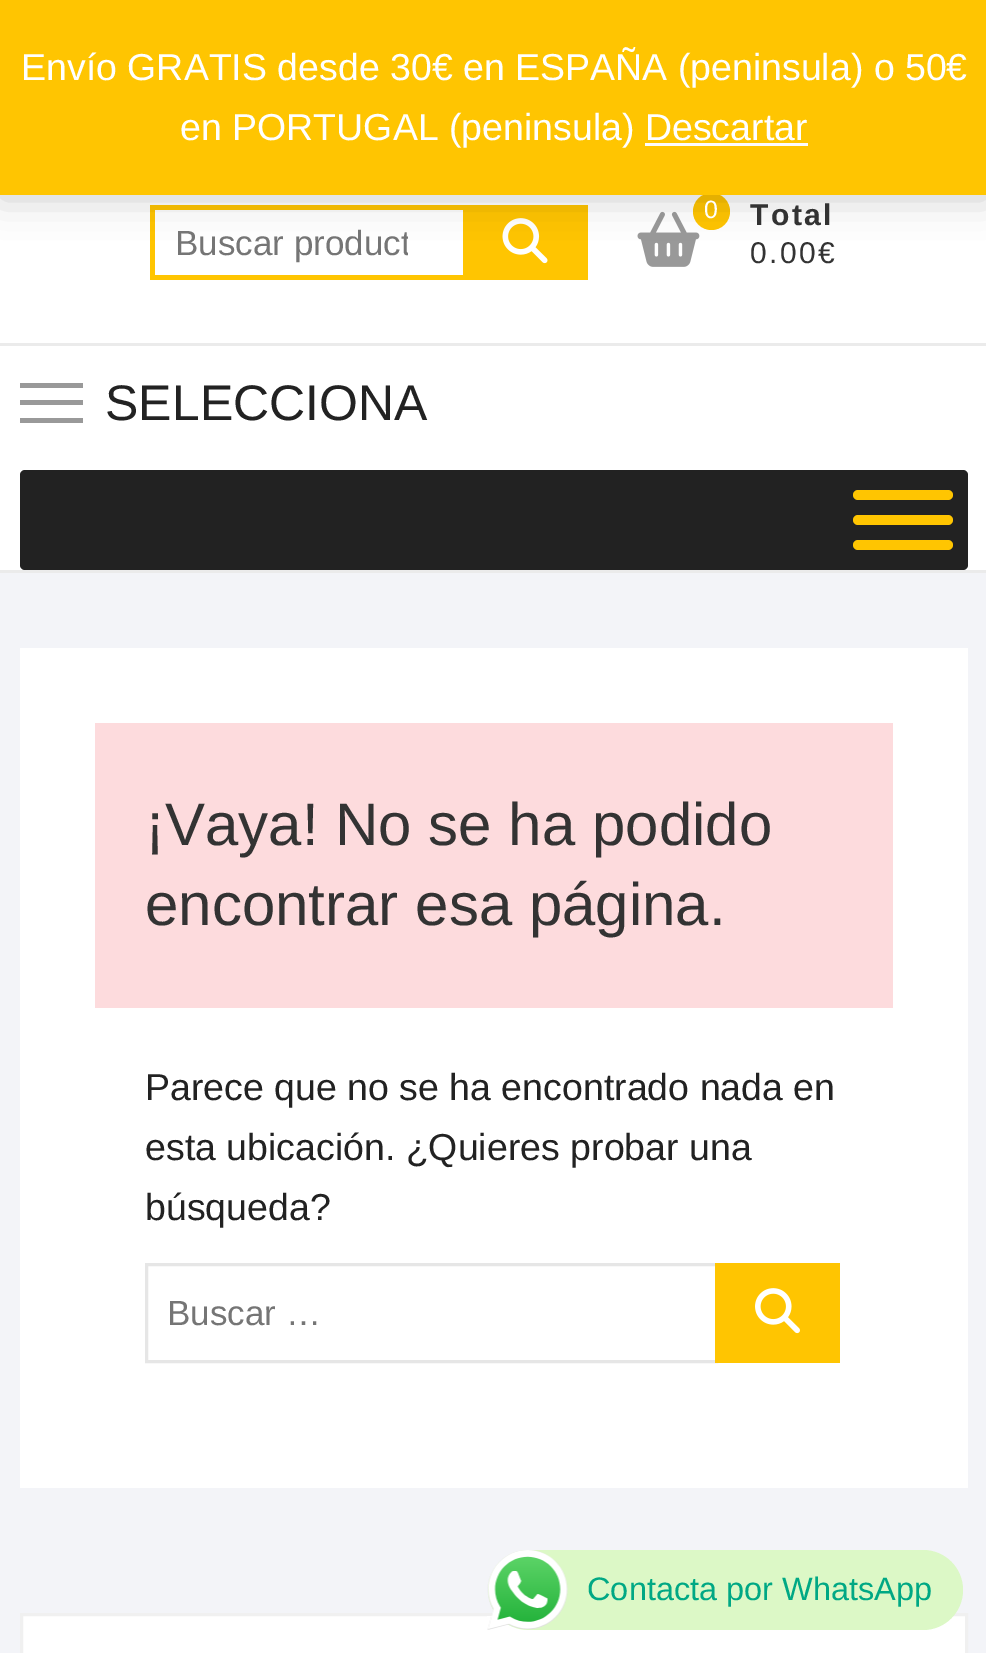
%!PS-Adobe-3.0
%%BoundingBox: 0 0 986 1653
%%LanguageLevel: 3
%%Pages: 1
%%EndComments
%%BeginProlog
/setink { dup -16 bitshift 255 div exch dup -8 bitshift 255 and 255 div exch 255 and 255 div setrgbcolor } def
/usefont { [ exch dup neg 0 0 3 -1 roll 0 0 ] selectfont } def
/setalpha { dup .setfillconstantalpha .setstrokeconstantalpha } def
/disc { newpath 0 360 arc closepath } def
/rrect { 5 dict begin { /r /h /w /y /x } { exch def } forall
  x r add y moveto x w add y 2 copy h add r arct x w add y h add x 1 index r arct
  x y h add x y r arct x y 2 copy exch w add exch r arct closepath end } def
/softshadow { 12 dict begin { /a /b /q /h /w /y /x } { exch def } forall gsave /was 0 def
  9 -2 -9 { dup b mul 4 div /e exch def 1 sub .425 mul 2.718 exch exp 1 add a .99 .min exch div /now exch def
    1 1 now sub 1 was sub div sub setalpha /was now def
    w h .min e 2 mul add 0 gt { x e sub y e sub w e 2 mul add h e 2 mul add
      q e add b .6 mul add w h .min 2 div e add .min 0 .max rrect fill } if } for grestore end } def
/drawimage { 5 dict begin { /h /w /y /x /name } { exch def } forall
  gsave x y translate w h scale
  w h 8 [w 0 0 h 0 0] name (r) file false 3 colorimage grestore end } def
%%EndProlog
%%BeginSetup
<< /PageSize [986 1653] /PageUsesTransparency true >> setpagedevice
%%EndSetup
%%Page: 1 1
0 .pushpdf14devicefilter
0 1653 translate 1 -1 scale
4 setmiterlimit
16#F3F4F8 setink
0 0 986 1653 rectfill
[
    [0 195 986 375 16#FFFFFF]
    [150 205 313 5 16#FFC501]
    [150 275 313 5 16#FFC501]
    [150 205 5 75 16#FFC501]
    [463 205 125 75 16#FFC501]
] { aload pop setink rectfill } forall
(img1.raw) 502 218 46 46 drawimage
(img2.raw) 637 211 63 56 drawimage
711.5 211.5 18.5 disc fill
16#000000 setink
0 3 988 195 0 19 0.2 softshadow
16#FFC501 setink
0 0 986 195 rectfill
/LiberationSans-Regular 37.5 usefont
16#FFFFFF setink
21 80 moveto (Envío GRATIS desde 30€ en ESPAÑA \(peninsula\) o 50€) show
180 140 moveto (en PORTUGAL \(peninsula\) Descartar) show
16#FCFBFE setink
645 143 163 3 rectfill
gsave
175 223 233 40 rectclip
/LiberationSans-Regular 35 usefont
16#757575 setink
175 255 moveto (Buscar product) show
grestore
/LiberationSans-Regular 25 usefont
16#FFFFFF setink
704 218 moveto (0) show
/LiberationSans-Bold 30 usefont
16#333333 setink
750 225 moveto 2.5 0 (Total) ashow
/LiberationSans-Regular 30 usefont
750 263 moveto 2.5 0 (0.00€) ashow
[
    [0 343 986 3 16#EBEBEB]
    [0 570 986 3 16#EBEBEB]
    [20 400 63 5 16#999999]
    [20 383 63 5 16#999999]
    [20 418 63 5 16#999999]
] { aload pop setink rectfill } forall
/LiberationSans-Regular 50 usefont
16#222222 setink
105 420 moveto (SELECCIONA) show
20 470 948 100 5 rrect fill
16#FFC501 setink
853 490 100 10 5 rrect fill
853 515 100 10 5 rrect fill
853 540 100 10 5 rrect fill
16#FFFFFF setink
20 648 948 840 rectfill
16#FDDBDD setink
95 723 798 285 rectfill
/LiberationSans-Regular 60 usefont
16#333333 setink
145 845 moveto (¡Vaya! No se ha podido) show
145 925 moveto (encontrar esa página.) show
/LiberationSans-Regular 37.5 usefont
16#222222 setink
[
    [(Parece que no se ha encontrado nada en) 145 1100]
    [(esta ubicación. ¿Quieres probar una) 145 1160]
    [(búsqueda?) 145 1220]
] { aload pop moveto show } forall
16#E6E6E6 setink
3 setlinewidth
146.5 1264.5 570 97 rectstroke
/LiberationSans-Regular 35 usefont
16#757575 setink
167 1325 moveto (Buscar …) show
16#FFC501 setink
715 1263 125 100 rectfill
(img3.raw) 755 1288 45 46 drawimage
16#FFFFFF setink
21.5 1614.5 moveto 966.5 1614.5 lineto 966.5 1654.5 lineto 21.5 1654.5 lineto closepath gsave fill grestore
16#F0F0F0 setink
stroke
16#DCF8C6 setink
488 1550 475 80 40 rrect fill
(img4.raw) 487 1550 81 80 drawimage
/LiberationSans-Regular 32.5 usefont
16#00A884 setink
587 1600 moveto (Contacta por WhatsApp) show
.poppdf14devicefilter showpage
%%EOF
